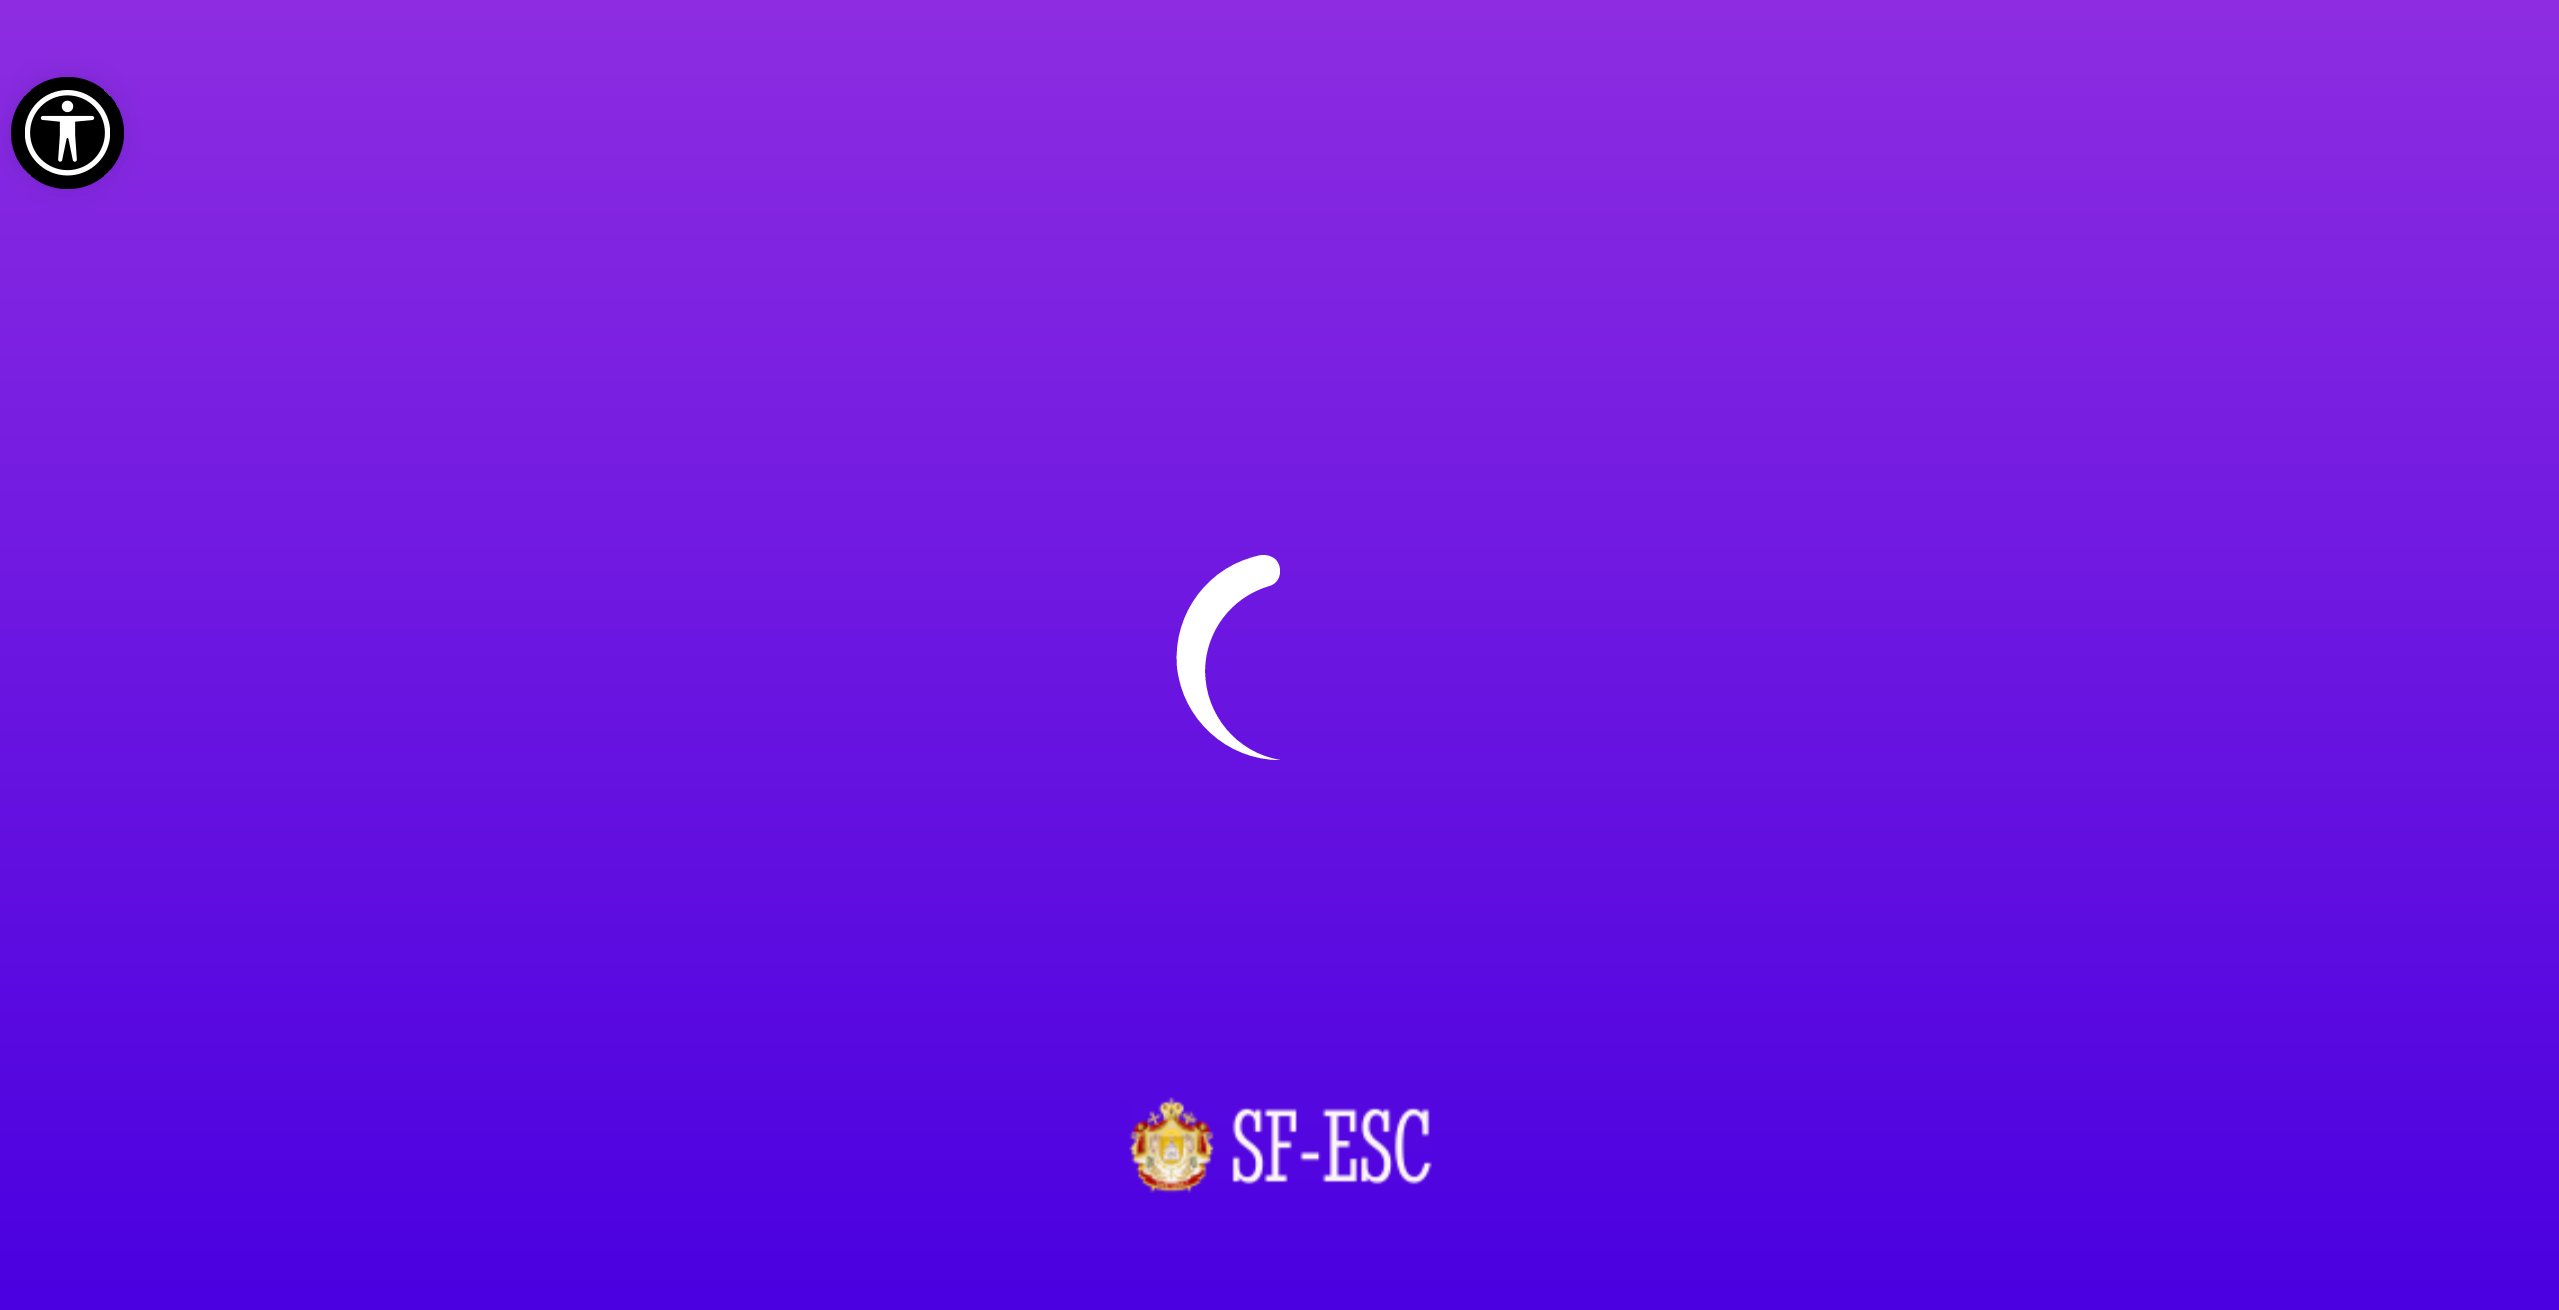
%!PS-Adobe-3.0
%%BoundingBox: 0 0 2559 1310
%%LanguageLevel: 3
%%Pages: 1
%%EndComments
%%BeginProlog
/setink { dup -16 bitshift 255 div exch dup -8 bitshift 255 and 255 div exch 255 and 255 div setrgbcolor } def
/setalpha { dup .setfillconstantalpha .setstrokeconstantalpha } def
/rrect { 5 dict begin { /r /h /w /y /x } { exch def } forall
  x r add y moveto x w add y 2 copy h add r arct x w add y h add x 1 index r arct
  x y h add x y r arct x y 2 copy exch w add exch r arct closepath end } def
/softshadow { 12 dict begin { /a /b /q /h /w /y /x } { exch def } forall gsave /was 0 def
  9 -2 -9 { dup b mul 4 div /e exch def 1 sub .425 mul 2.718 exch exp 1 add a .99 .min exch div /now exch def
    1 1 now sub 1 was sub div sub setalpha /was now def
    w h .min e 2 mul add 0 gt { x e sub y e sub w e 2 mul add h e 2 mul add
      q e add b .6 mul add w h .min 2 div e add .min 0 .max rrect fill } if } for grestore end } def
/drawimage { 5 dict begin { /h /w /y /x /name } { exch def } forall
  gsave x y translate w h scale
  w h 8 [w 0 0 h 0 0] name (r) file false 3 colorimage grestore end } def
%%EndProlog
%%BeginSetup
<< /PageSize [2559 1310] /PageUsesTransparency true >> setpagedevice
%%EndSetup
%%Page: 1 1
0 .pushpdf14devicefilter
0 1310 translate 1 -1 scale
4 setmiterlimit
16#FFFFFF setink
0 0 2559 1310 rectfill
gsave 0 0 moveto 2559 0 lineto 2559 1310 lineto 0 1310 lineto closepath clip newpath
<< /ShadingType 2 /ColorSpace /DeviceRGB /Coords [1280 0 1280 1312] /Extend [true true] /Function << /FunctionType 2 /Domain [0 1] /C0 [0.557 0.176 0.886] /C1 [0.29 0 0.878] /N 1 >> >> shfill grestore
1280 760 moveto 1237 753 1205 715 1205 671 curveto 1205 632 1231 597 1269 586 curveto 1276 584 1280 578 1280 571 curveto 1280 566 1278 562 1275 559 curveto 1271 556 1267 555 1262 555 curveto 1209 565 1173 613 1177 666 curveto 1182 719 1227 760 1280 760 curveto closepath fill
(img1.raw) 1129 1097 303 96 drawimage
16#000000 setink
11 77 113 112 56 11 0.1 softshadow
(img3.raw) 115 104 3 4 drawimage
11 77 113 112 56 rrect fill
(img2.raw) 25 90 85 86 drawimage
.poppdf14devicefilter showpage
%%EOF
